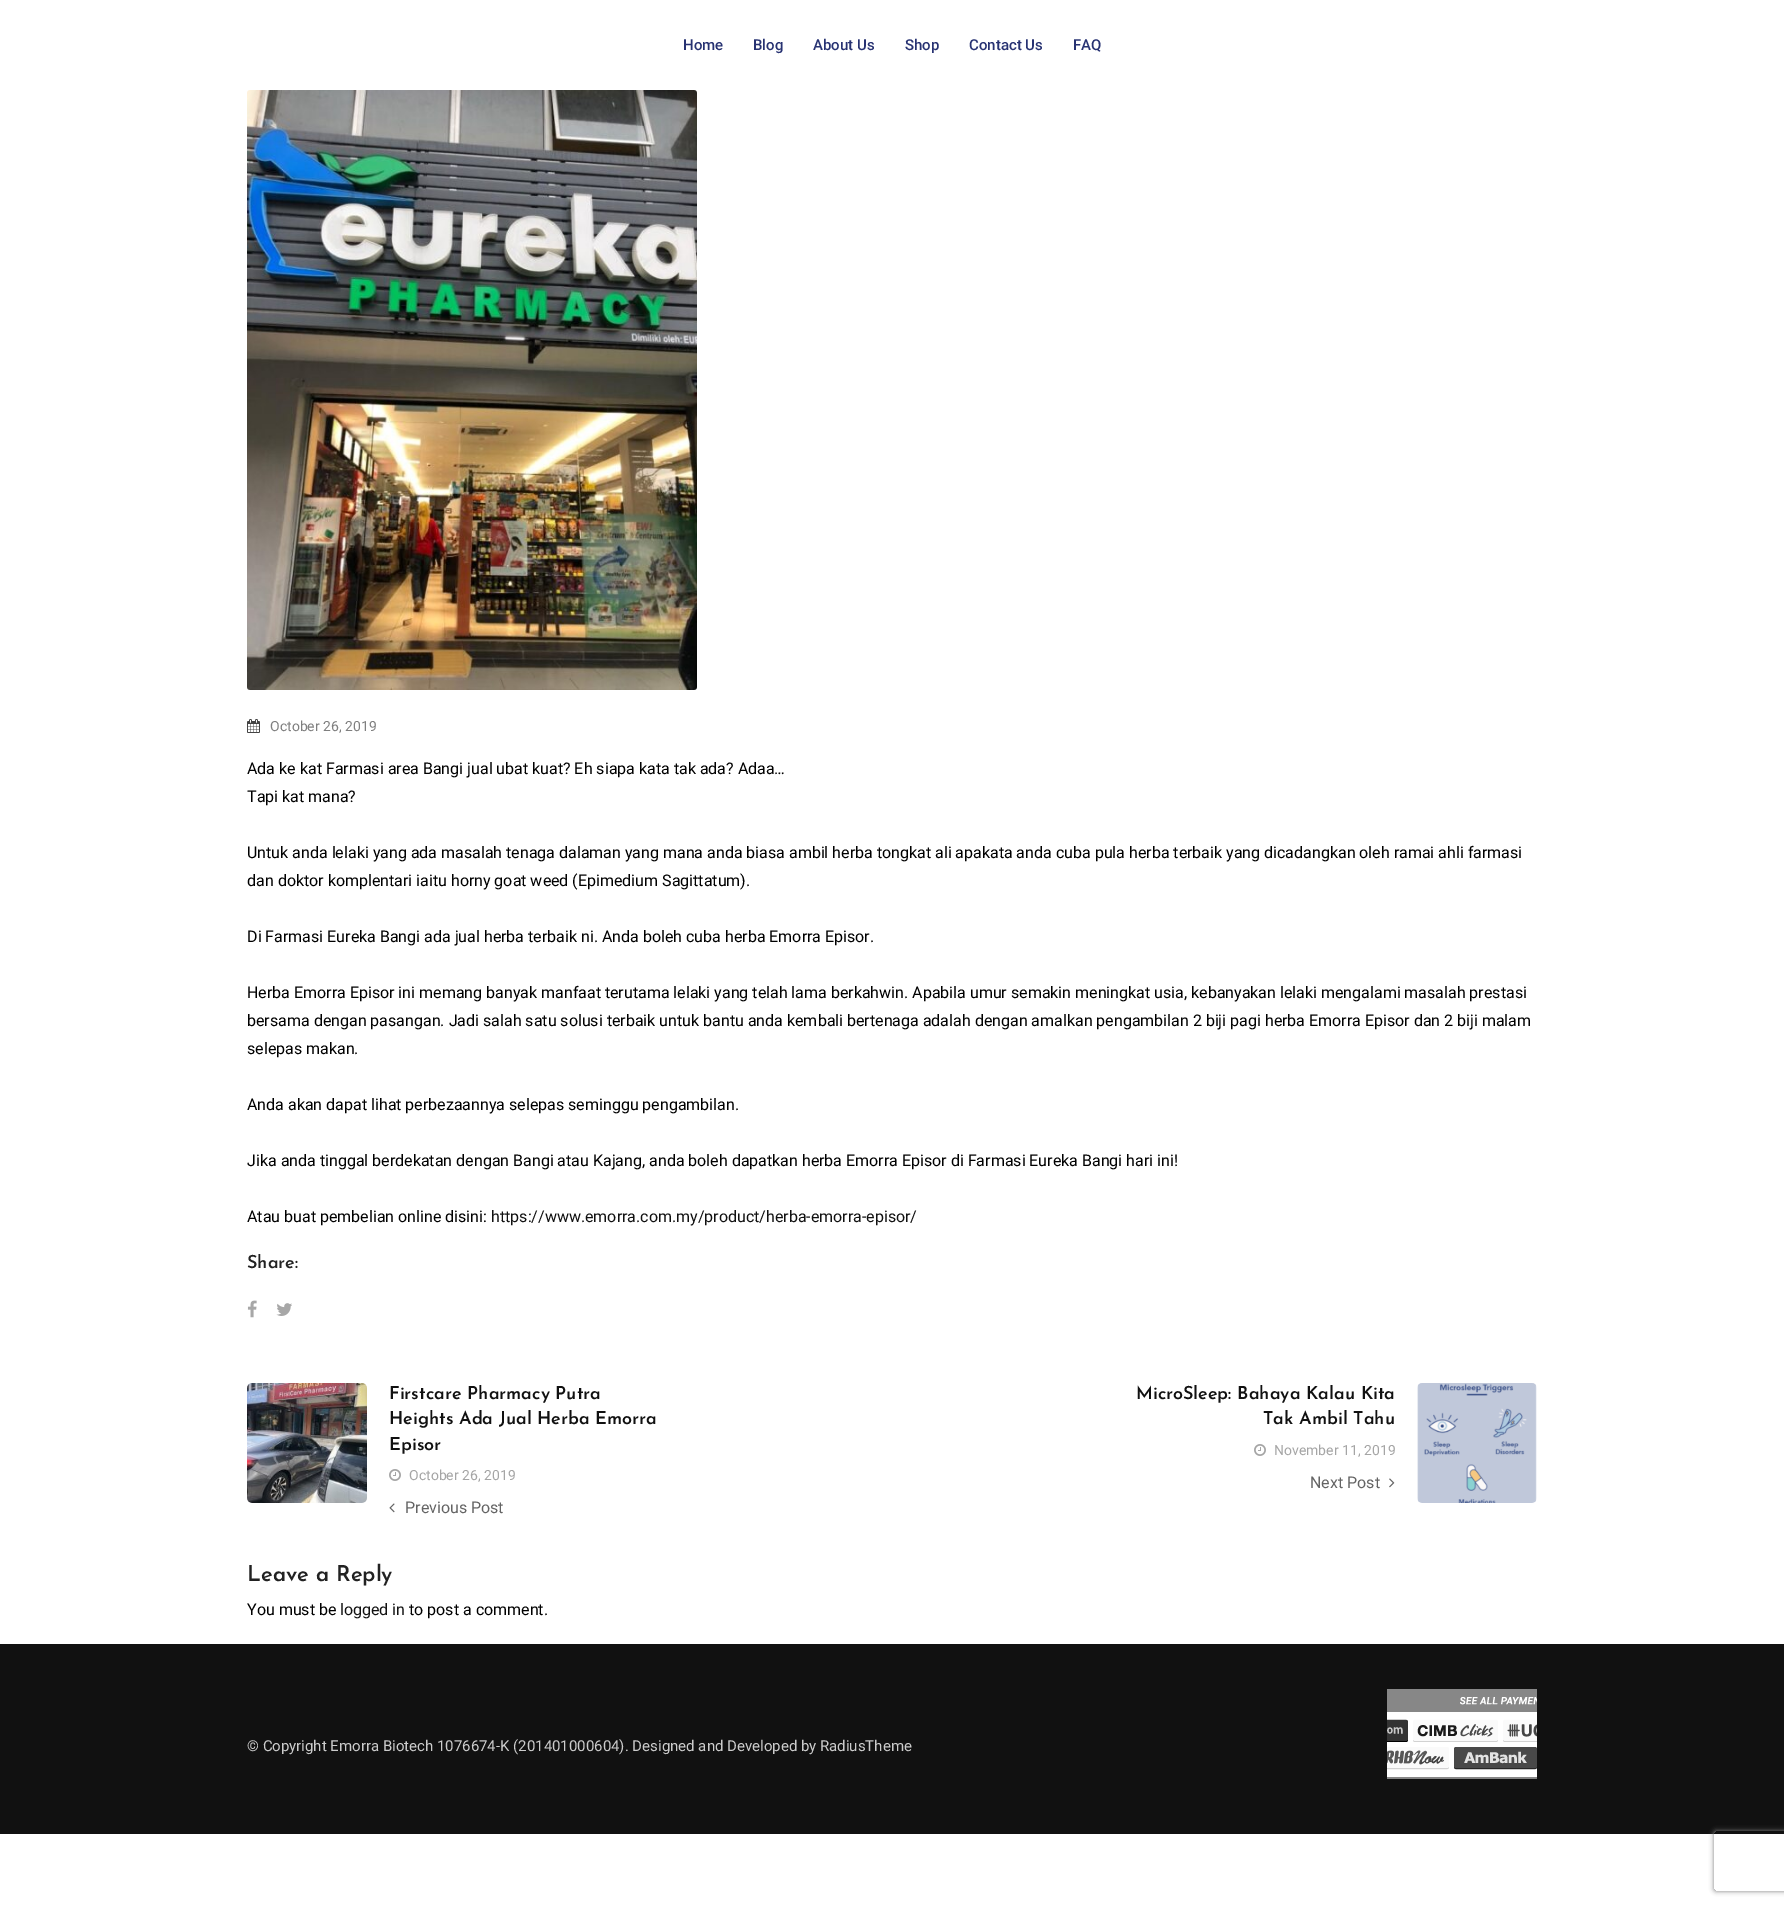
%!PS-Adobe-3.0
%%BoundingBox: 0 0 1784 1905
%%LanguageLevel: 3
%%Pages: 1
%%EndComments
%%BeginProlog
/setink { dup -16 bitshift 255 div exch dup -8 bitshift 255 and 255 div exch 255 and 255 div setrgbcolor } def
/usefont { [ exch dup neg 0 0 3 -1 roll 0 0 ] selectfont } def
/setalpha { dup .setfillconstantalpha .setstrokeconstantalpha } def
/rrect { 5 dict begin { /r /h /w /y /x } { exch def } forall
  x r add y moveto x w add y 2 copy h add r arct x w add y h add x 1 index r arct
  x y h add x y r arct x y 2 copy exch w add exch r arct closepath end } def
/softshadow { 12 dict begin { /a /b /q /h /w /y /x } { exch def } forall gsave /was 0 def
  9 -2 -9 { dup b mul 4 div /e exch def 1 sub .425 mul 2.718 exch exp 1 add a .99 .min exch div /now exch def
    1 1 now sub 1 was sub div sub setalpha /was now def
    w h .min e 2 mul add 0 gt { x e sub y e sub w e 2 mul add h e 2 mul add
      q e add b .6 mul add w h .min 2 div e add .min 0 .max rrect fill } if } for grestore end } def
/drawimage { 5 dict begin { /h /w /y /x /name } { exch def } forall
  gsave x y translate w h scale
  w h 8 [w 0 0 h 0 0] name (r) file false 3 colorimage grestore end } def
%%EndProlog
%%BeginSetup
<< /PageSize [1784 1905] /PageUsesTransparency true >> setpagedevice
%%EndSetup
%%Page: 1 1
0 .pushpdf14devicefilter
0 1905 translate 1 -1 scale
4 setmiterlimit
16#FFFFFF setink
0 0 1784 1905 rectfill
/Roboto-Medium 15 usefont
16#273272 setink
[
    [(Home) 683 50]
    [(Blog) 753 50]
    [(About Us) 813 50]
    [(Shop) 905 50]
    [(Contact Us) 969 50]
    [(FAQ) 1073 50]
] { aload pop moveto show } forall
(img1.raw) 247 90 450 600 drawimage
(img2.raw) 247 719 13 14 drawimage
/Roboto-Regular 14 usefont
16#7F7F7F setink
270 731 moveto (October 26, 2019) show
/Roboto-Regular 16 usefont
16#000000 setink
[
    [(Ada ke kat Farmasi area Bangi jual ubat kuat? Eh siapa kata tak ada? Adaa…) 247 774]
    [(Tapi kat mana?) 247 802]
    [(Untuk anda lelaki yang ada masalah tenaga dalaman yang mana anda biasa ambil herba tongkat ali apakata anda cuba pula herba terbaik yang dicadangkan oleh ramai ahli farmasi) 247 858]
    [(dan doktor komplentari iaitu horny goat weed \(Epimedium Sagittatum\).) 247 886]
    [(Di Farmasi Eureka Bangi ada jual herba terbaik ni. Anda boleh cuba herba Emorra Episor.) 247 942]
    [(Herba Emorra Episor ini memang banyak manfaat terutama lelaki yang telah lama berkahwin. Apabila umur semakin meningkat usia, kebanyakan lelaki mengalami masalah prestasi) 247 998]
    [(bersama dengan pasangan. Jadi salah satu solusi terbaik untuk bantu anda kembali bertenaga adalah dengan amalkan pengambilan 2 biji pagi herba Emorra Episor dan 2 biji malam) 247 1026]
    [(selepas makan.) 247 1054]
    [(Anda akan dapat lihat perbezaannya selepas seminggu pengambilan.) 247 1110]
    [(Jika anda tinggal berdekatan dengan Bangi atau Kajang, anda boleh dapatkan herba Emorra Episor di Farmasi Eureka Bangi hari ini!) 247 1166]
    [(Atau buat pembelian online disini:) 247 1222]
] { aload pop moveto show } forall
16#111111 setink
491 1222 moveto (https://www.emorra.com.my/product/herba-emorra-episor/) show
/JosefinSans-SemiBold 18 usefont
16#222222 setink
247 1268 moveto (Share:) show
(img3.raw) 247 1300 10 18 drawimage
(img4.raw) 276 1303 16 13 drawimage
(img5.raw) 247 1383 120 120 drawimage
16#111111 setink
[
    [(Firstcare Pharmacy Putra) 389 1399]
    [(Heights Ada Jual Herba Emorra) 389 1424]
    [(Episor) 389 1450]
] { aload pop moveto show } forall
(img6.raw) 389 1469 12 12 drawimage
/Roboto-Regular 14 usefont
16#A5A5A5 setink
409 1480 moveto (October 26, 2019) show
(img7.raw) 389 1503 6 10 drawimage
/Roboto-Regular 16 usefont
16#646464 setink
405 1513 moveto (Previous Post) show
/JosefinSans-SemiBold 18 usefont
16#111111 setink
1136 1399 moveto (MicroSleep: Bahaya Kalau Kita) show
1263 1424 moveto (Tak Ambil Tahu) show
(img6.raw) 1254 1444 12 12 drawimage
/Roboto-Regular 14 usefont
16#A5A5A5 setink
1274 1455 moveto (November 11, 2019) show
/Roboto-Regular 16 usefont
16#646464 setink
1310 1488 moveto (Next Post) show
(img8.raw) 1389 1478 6 10 drawimage
(img9.raw) 1417 1383 120 120 drawimage
/JosefinSans-SemiBold 22 usefont
16#222222 setink
247 1581 moveto (Leave a Reply) show
/Roboto-Regular 16 usefont
16#000000 setink
247 1615 moveto (You must be) show
16#111111 setink
340 1615 moveto (logged in) show
16#000000 setink
409 1615 moveto (to post a comment.) show
16#111111 setink
0 1644 1784 190 rectfill
/Roboto-Regular 15 usefont
16#CCCCCC setink
247 1751 moveto (© Copyright Emorra Biotech 1076674-K \(201401000604\). Designed and Developed by RadiusTheme) show
(img10.raw) 1387 1689 150 90 drawimage
gsave
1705 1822 moveto 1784 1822 lineto 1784 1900 lineto 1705 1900 lineto closepath 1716 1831 moveto 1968 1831 lineto 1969 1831 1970 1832 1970 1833 curveto 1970 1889 lineto 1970 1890 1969 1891 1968 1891 curveto 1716 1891 lineto 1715 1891 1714 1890 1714 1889 curveto 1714 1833 lineto 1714 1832 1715 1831 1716 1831 curveto closepath eoclip newpath
16#808080 setink
1714 1831 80 60 2 2.5 1 softshadow
grestore
.poppdf14devicefilter showpage
%%EOF
